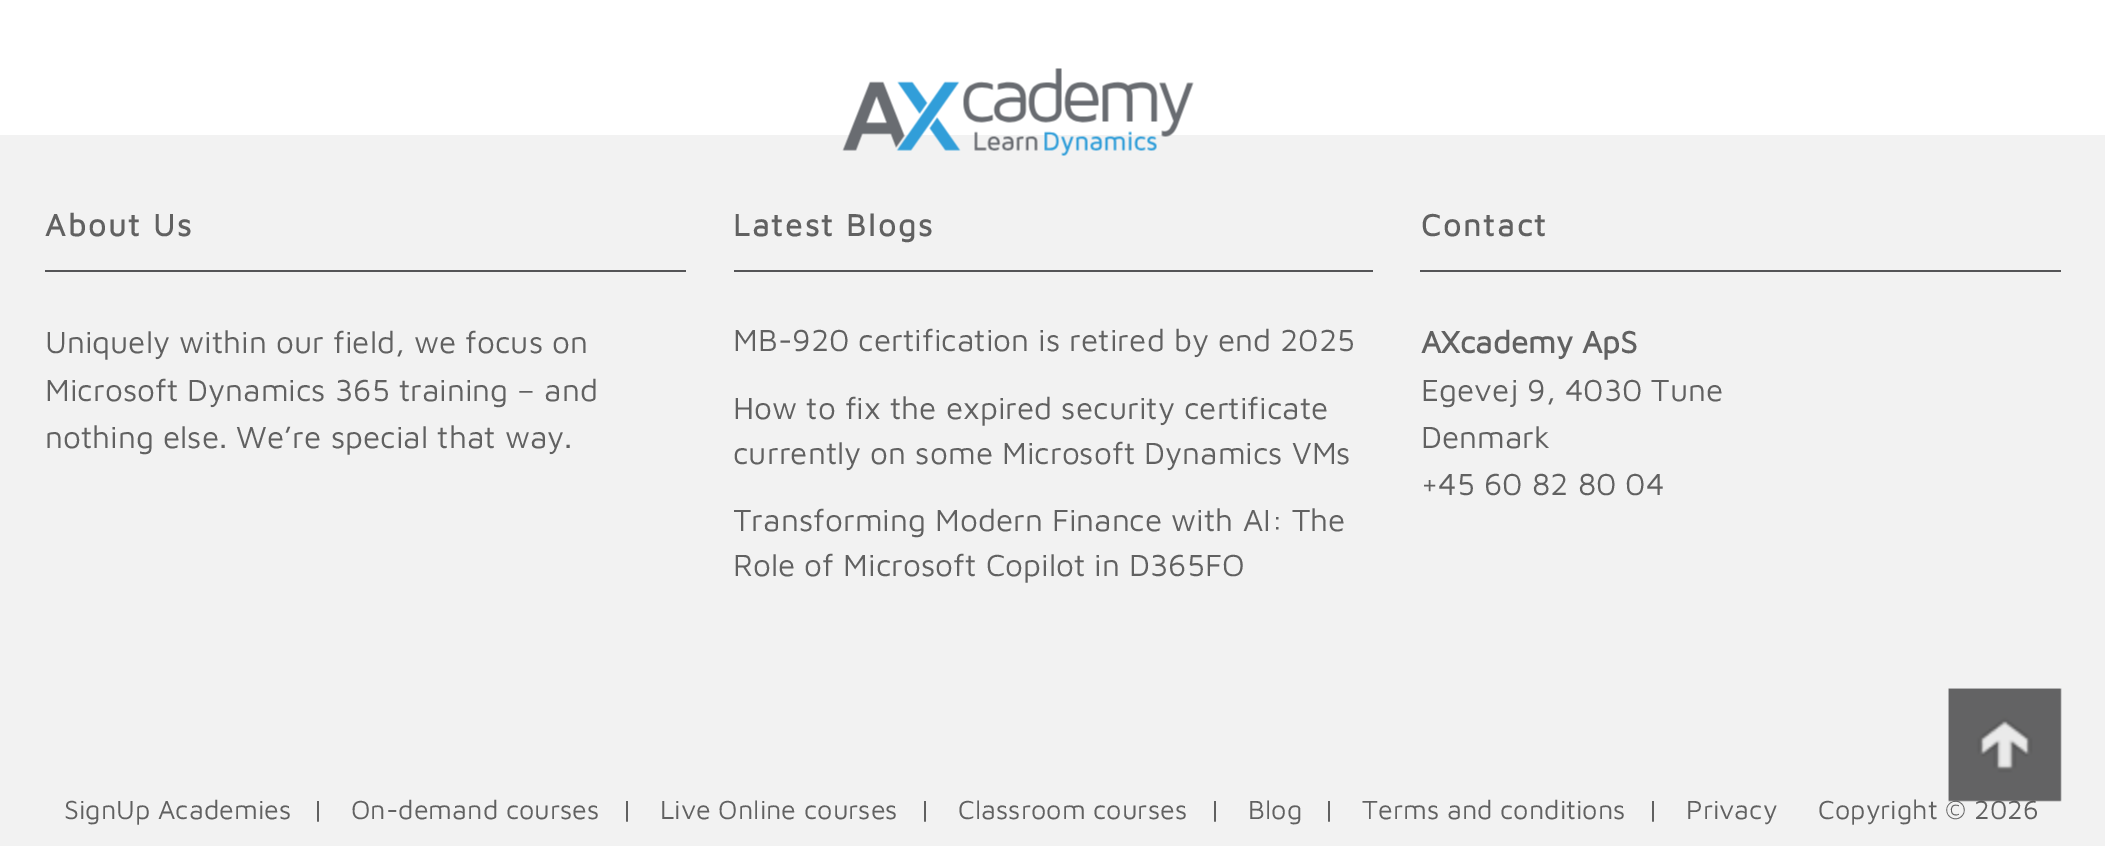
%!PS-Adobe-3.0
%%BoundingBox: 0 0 2105 846
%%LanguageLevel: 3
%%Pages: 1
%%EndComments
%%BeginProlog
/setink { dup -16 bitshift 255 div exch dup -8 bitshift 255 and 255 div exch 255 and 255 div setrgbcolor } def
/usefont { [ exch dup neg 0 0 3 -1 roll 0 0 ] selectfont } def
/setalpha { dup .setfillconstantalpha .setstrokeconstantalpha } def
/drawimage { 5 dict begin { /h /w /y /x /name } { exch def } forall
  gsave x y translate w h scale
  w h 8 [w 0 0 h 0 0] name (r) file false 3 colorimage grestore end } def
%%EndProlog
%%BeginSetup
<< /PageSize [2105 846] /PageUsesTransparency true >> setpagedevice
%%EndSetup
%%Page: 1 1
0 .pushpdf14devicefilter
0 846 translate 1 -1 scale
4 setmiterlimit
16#F2F2F2 setink
0 0 2105 846 rectfill
16#FFFFFF setink
0 0 2105 135 rectfill
(img1.raw) 842 68 352 88 drawimage
16#555557 setink
45 270 641 2 rectfill
/MavenPro-Bold 31.5 usefont
16#616161 setink
45 236 moveto 2.25 0 (About Us) ashow
/MavenPro-Regular 31.5 usefont
[
    [(Uniquely within our field, we focus on) 45 353]
    [(Microsoft Dynamics 365 training – and) 45 401]
    [(nothing else. We’re special that way.) 45 448]
] { aload pop moveto show } forall
16#555557 setink
734 270 639 2 rectfill
/MavenPro-Bold 31.5 usefont
16#616161 setink
733 236 moveto 2.25 0 (Latest Blogs) ashow
/MavenPro-Regular 31.5 usefont
[
    [(MB-920 certification is retired by end 2025) 733 351]
    [(How to fix the expired security certificate) 733 419]
    [(currently on some Microsoft Dynamics VMs) 733 464]
] { aload pop moveto show } forall
gsave
734 205 639 405 rectclip
733 531 moveto (Transforming Modern Finance with AI: The) show
grestore
733 576 moveto (Role of Microsoft Copilot in D365FO) show
16#555557 setink
1420 270 641 2 rectfill
/MavenPro-Bold 31.5 usefont
16#616161 setink
1421 236 moveto 2.25 0 (Contact) ashow
1421 353 moveto (AXcademy ApS) show
/MavenPro-Regular 31.5 usefont
[
    [(Egevej 9, 4030 Tune) 1421 401]
    [(Denmark) 1421 448]
    [(+45 60 82 80 04) 1421 495]
] { aload pop moveto show } forall
/MavenPro-Regular 27 usefont
1818 819 moveto (Copyright © 2026) show
0.2 setalpha
16#000000 setink
1949 689 112 112 rectfill
1 setalpha
(img2.raw) 1948 688 114 114 drawimage
16#616161 setink
[
    [(SignUp Academies) 64 819]
    [(|) 312 819]
    [(On-demand courses) 351 819]
    [(|) 621 819]
    [(Live Online courses) 660 819]
    [(|) 919 819]
    [(Classroom courses) 958 819]
    [(|) 1209 819]
    [(Blog) 1248 819]
    [(|) 1323 819]
    [(Terms and conditions) 1362 819]
    [(|) 1647 819]
    [(Privacy) 1686 819]
] { aload pop moveto show } forall
.poppdf14devicefilter showpage
%%EOF
